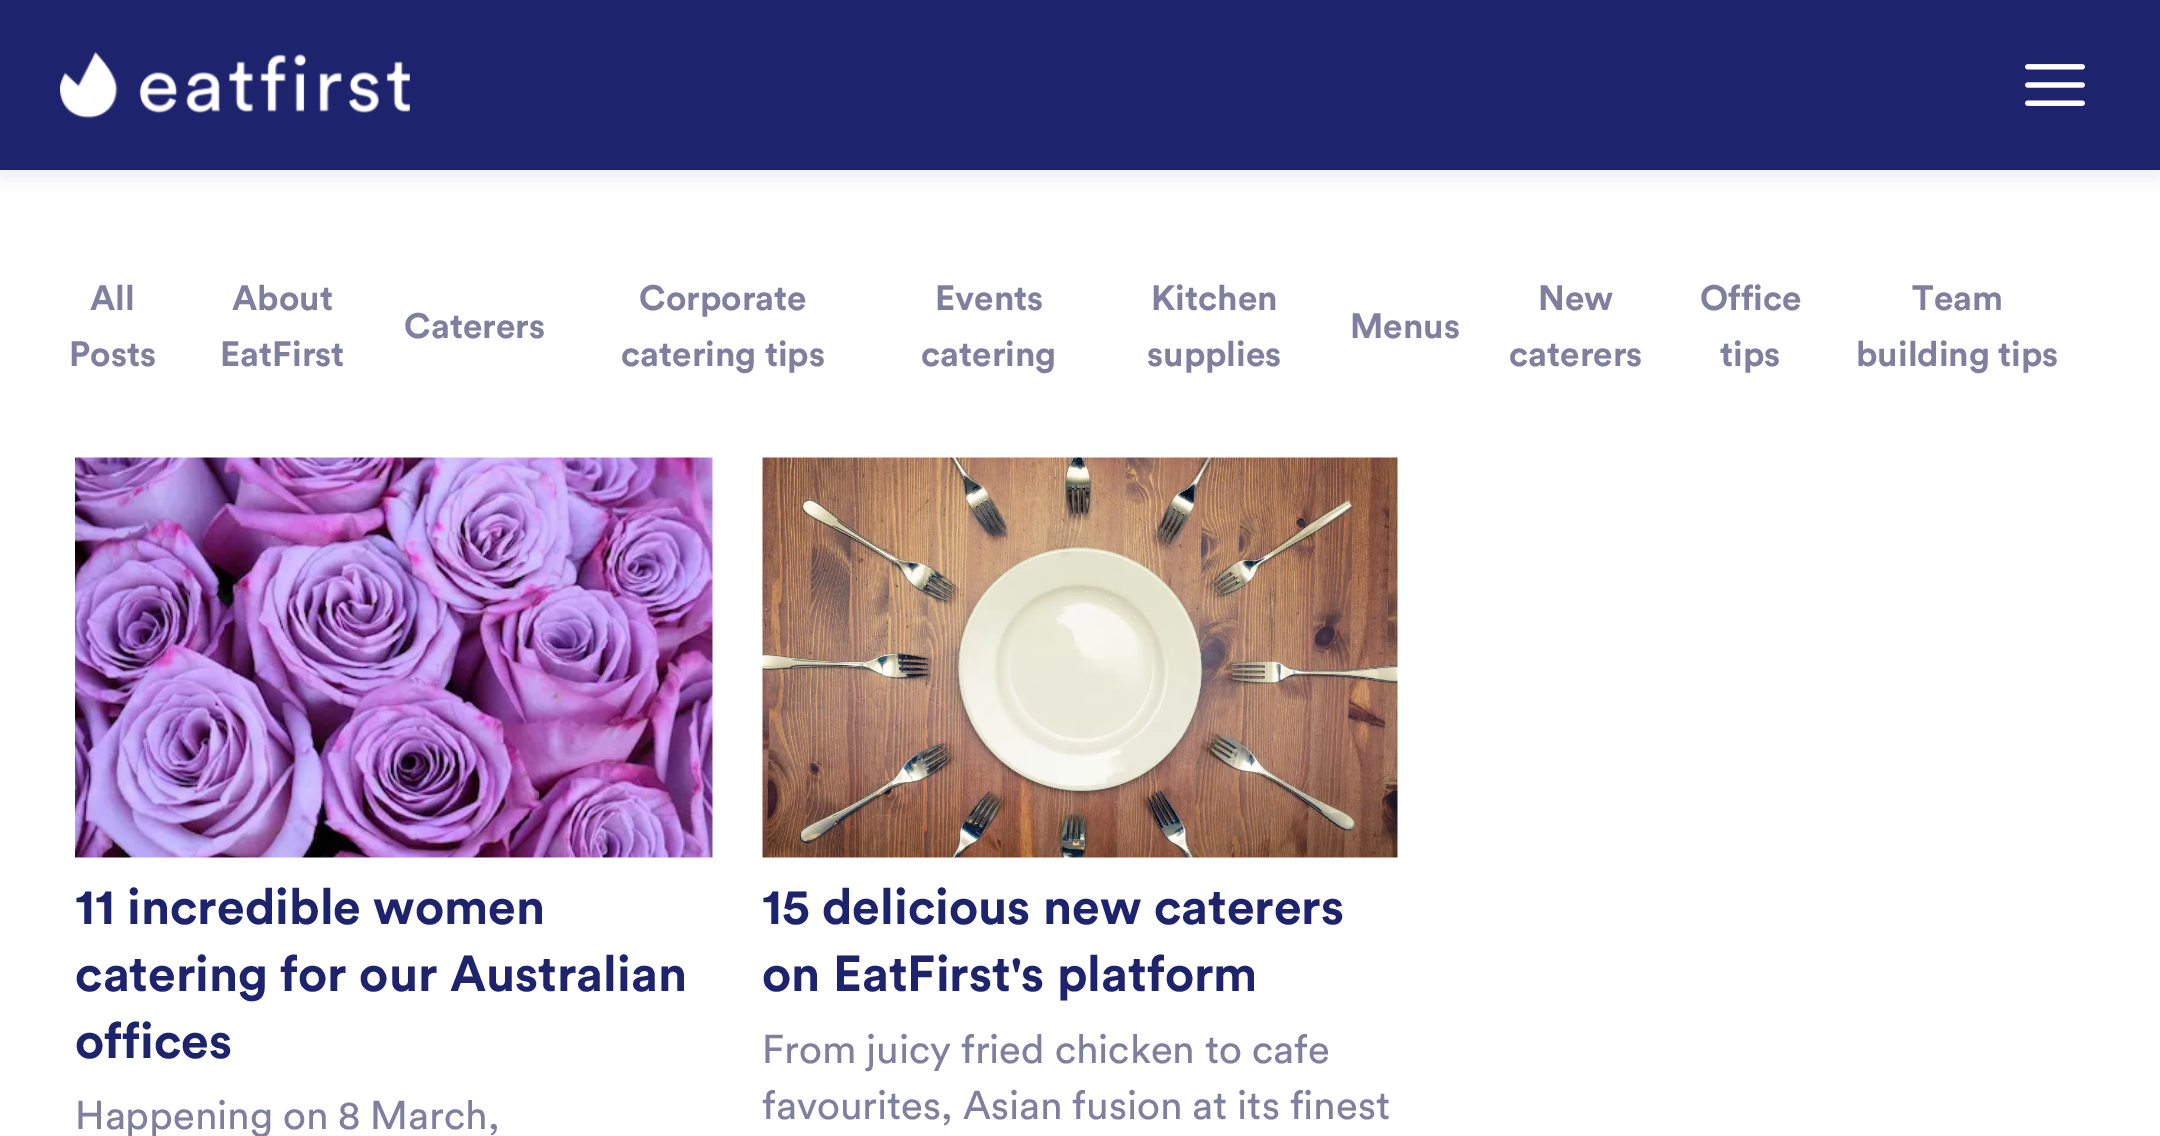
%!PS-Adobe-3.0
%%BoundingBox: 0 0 2160 1136
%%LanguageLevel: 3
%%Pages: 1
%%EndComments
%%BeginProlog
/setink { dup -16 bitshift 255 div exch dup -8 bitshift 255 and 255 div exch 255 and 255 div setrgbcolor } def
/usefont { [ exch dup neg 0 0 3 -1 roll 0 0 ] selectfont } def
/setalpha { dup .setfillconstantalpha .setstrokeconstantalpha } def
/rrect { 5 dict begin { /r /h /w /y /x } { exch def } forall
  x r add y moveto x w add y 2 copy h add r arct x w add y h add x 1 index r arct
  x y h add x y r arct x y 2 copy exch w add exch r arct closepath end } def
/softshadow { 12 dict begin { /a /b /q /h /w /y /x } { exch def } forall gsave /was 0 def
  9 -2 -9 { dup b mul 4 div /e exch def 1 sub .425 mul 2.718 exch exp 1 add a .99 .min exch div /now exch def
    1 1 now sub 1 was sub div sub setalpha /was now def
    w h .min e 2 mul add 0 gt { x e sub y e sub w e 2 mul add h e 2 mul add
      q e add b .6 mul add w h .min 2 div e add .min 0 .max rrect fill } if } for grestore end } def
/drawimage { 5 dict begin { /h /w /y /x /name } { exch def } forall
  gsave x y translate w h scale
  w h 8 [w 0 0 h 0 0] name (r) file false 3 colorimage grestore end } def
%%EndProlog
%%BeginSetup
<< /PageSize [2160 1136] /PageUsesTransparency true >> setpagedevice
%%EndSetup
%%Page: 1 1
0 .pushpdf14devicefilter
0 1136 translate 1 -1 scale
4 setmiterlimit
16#FFFFFF setink
0 0 2160 1136 rectfill
16#1E236E setink
0 5 2160 170 0 10 0.1 softshadow
0 0 2160 170 rectfill
(img1.raw) 60 52 350 67 drawimage
(img2.raw) 2025 64 60 42 drawimage
/Circular-Bold 35 usefont
16#7F7FA0 setink
[
    [(All) 90 310]
    [(Posts) 69 366]
    [(About) 232 310]
    [(EatFirst) 220 366]
    [(Caterers) 404 338]
    [(Corporate) 639 310]
    [(catering tips) 621 366]
    [(Events) 935 310]
    [(catering) 921 366]
    [(Kitchen) 1151 310]
    [(supplies) 1147 366]
    [(Menus) 1350 338]
    [(New) 1538 310]
    [(caterers) 1509 366]
    [(Office) 1700 310]
    [(tips) 1720 366]
    [(Team) 1912 310]
    [(building tips) 1856 366]
] { aload pop moveto show } forall
(img3.raw) 75 457 638 401 drawimage
/Circular-Bold 50 usefont
16#1E236E setink
[
    [(11 incredible women) 75 924]
    [(catering for our Australian) 75 991]
    [(offices) 75 1058]
] { aload pop moveto show } forall
/Circular-Regular 40 usefont
16#7F7FA0 setink
75 1129 moveto (Happening on 8 March,) show
(img4.raw) 762 457 636 401 drawimage
/Circular-Bold 50 usefont
16#1E236E setink
762 924 moveto (15 delicious new caterers) show
762 991 moveto (on EatFirst's platform) show
/Circular-Regular 40 usefont
16#7F7FA0 setink
762 1063 moveto (From juicy fried chicken to cafe) show
762 1119 moveto (favourites, Asian fusion at its finest) show
.poppdf14devicefilter showpage
%%EOF
